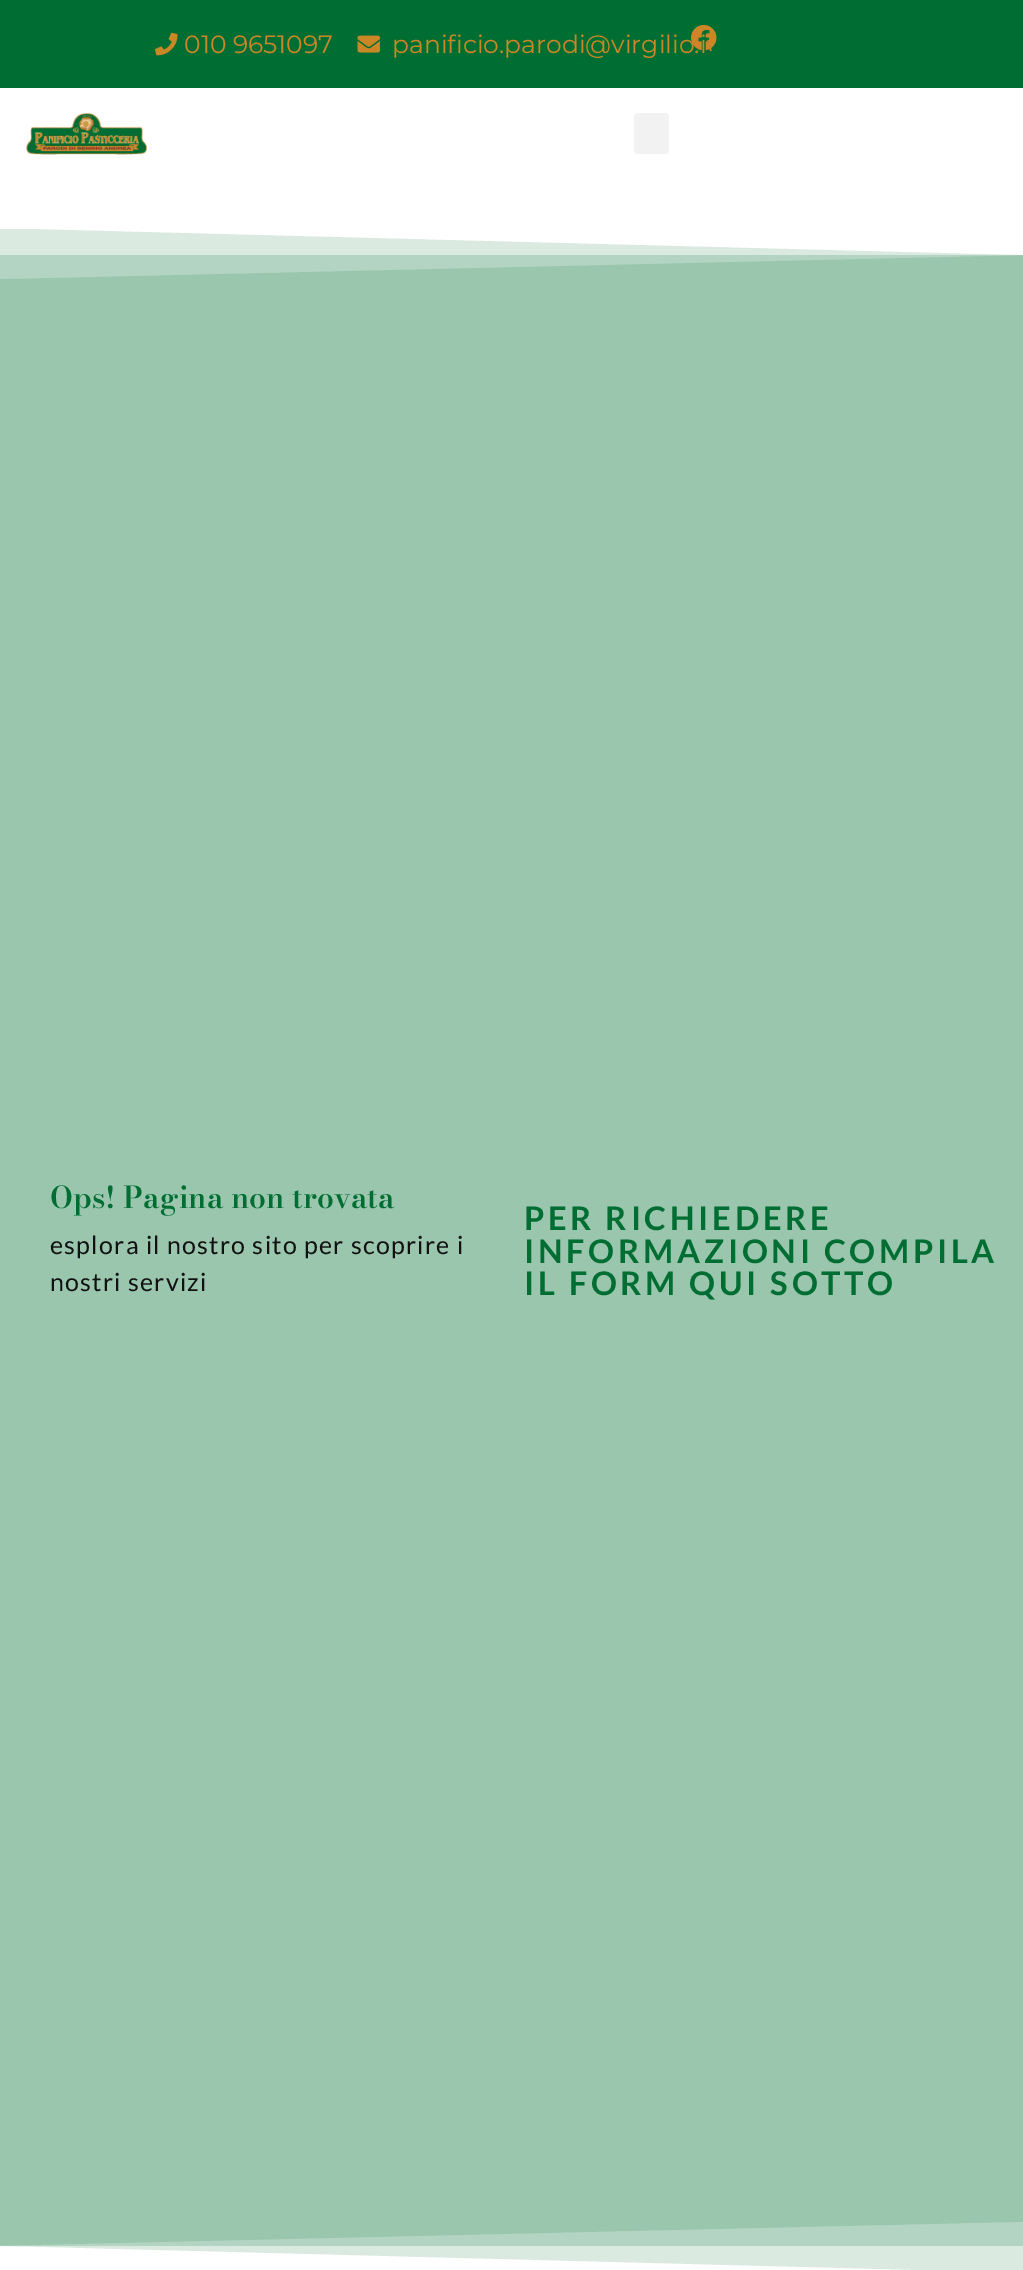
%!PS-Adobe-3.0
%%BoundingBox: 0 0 1023 2270
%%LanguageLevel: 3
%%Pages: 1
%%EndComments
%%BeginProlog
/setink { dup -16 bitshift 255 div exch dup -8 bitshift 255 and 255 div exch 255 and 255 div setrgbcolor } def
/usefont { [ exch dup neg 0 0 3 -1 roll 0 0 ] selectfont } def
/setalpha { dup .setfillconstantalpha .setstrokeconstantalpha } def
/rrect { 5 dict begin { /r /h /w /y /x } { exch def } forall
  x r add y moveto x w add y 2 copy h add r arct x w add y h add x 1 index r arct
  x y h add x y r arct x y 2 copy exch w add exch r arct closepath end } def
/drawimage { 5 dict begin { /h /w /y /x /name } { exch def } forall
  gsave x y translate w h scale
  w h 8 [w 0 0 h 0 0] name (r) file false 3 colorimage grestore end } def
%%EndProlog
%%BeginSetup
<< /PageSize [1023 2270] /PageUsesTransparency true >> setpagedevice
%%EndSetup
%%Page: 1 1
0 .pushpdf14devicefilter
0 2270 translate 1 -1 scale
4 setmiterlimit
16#FFFFFF setink
0 0 1023 2270 rectfill
16#006E32 setink
0 0 1023 88 rectfill
/Montserrat-Regular 25 usefont
16#CB8626 setink
392 53 moveto (panificio.parodi@virgilio.i) show
(img1.raw) 691 24 26 27 drawimage
(img2.raw) 155 32 23 24 drawimage
184 53 moveto (010 9651097) show
(img3.raw) 357 35 23 18 drawimage
(img4.raw) 26 113 122 42 drawimage
16#F2F2F2 setink
634 113 35 41 4 rrect fill
16#CDE3D7 setink
0 229 1023 26 rectfill
16#FFFFFF setink
0 228 moveto 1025 228 lineto 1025 255 lineto closepath fill
16#9AC6AE setink
0 255 1023 1991 rectfill
0.25 setalpha
16#FFFFFF setink
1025 228 moveto 0 228 lineto 0 279 lineto 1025 255 lineto closepath fill
1 setalpha
16#CDE3D7 setink
1 2246 1022 24 rectfill
/BodoniModa-SemiBold 30 usefont
16#006E32 setink
50 1208 moveto (Ops! Pagina non trovata) show
/Lato-Regular 25 usefont
16#111111 setink
50 1254 moveto 1.25 0 (esplora il nostro sito per scoprire i) ashow
50 1291 moveto 1.25 0 (nostri servizi) ashow
/Lato-Bold 32.5 usefont
16#006E32 setink
524 1230 moveto 3.75 0 (PER RICHIEDERE) ashow
524 1263 moveto 3.75 0 (INFORMAZIONI COMPILA) ashow
524 1295 moveto 3.75 0 (IL FORM QUI SOTTO) ashow
16#FFFFFF setink
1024 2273 moveto -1 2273 lineto -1 2246 lineto closepath fill
0.25 setalpha
-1 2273 moveto 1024 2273 lineto 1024 2222 lineto -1 2246 lineto closepath fill
.poppdf14devicefilter showpage
%%EOF
